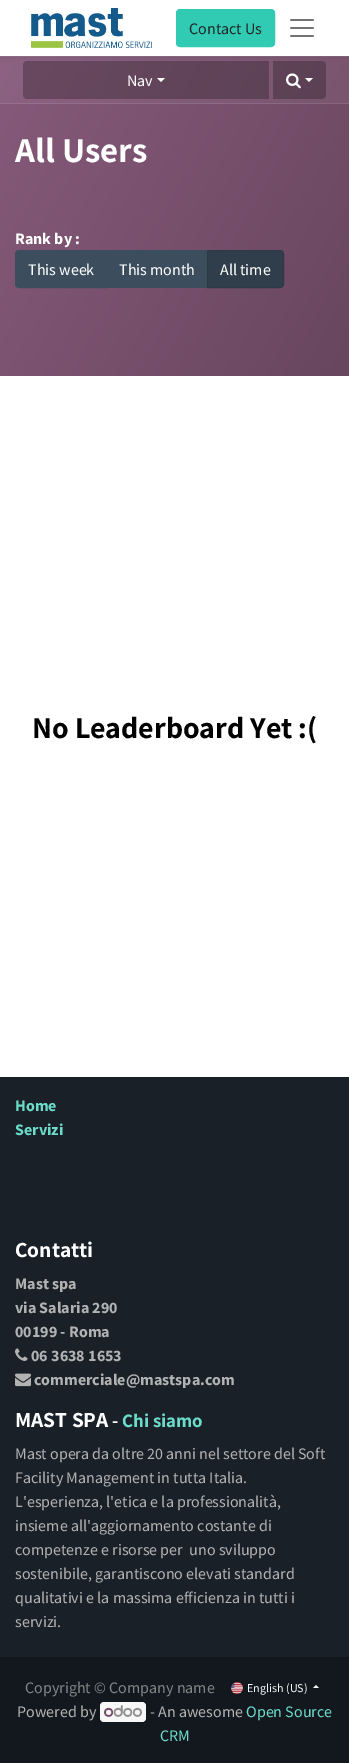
%!PS-Adobe-3.0
%%BoundingBox: 0 0 349 1763
%%LanguageLevel: 3
%%Pages: 1
%%EndComments
%%BeginProlog
/setink { dup -16 bitshift 255 div exch dup -8 bitshift 255 and 255 div exch 255 and 255 div setrgbcolor } def
/usefont { [ exch dup neg 0 0 3 -1 roll 0 0 ] selectfont } def
/setalpha { dup .setfillconstantalpha .setstrokeconstantalpha } def
/rrect { 5 dict begin { /r /h /w /y /x } { exch def } forall
  x r add y moveto x w add y 2 copy h add r arct x w add y h add x 1 index r arct
  x y h add x y r arct x y 2 copy exch w add exch r arct closepath end } def
/softshadow { 12 dict begin { /a /b /q /h /w /y /x } { exch def } forall gsave /was 0 def
  9 -2 -9 { dup b mul 4 div /e exch def 1 sub .425 mul 2.718 exch exp 1 add a .99 .min exch div /now exch def
    1 1 now sub 1 was sub div sub setalpha /was now def
    w h .min e 2 mul add 0 gt { x e sub y e sub w e 2 mul add h e 2 mul add
      q e add b .6 mul add w h .min 2 div e add .min 0 .max rrect fill } if } for grestore end } def
/drawimage { 5 dict begin { /h /w /y /x /name } { exch def } forall
  gsave x y translate w h scale
  w h 8 [w 0 0 h 0 0] name (r) file false 3 colorimage grestore end } def
%%EndProlog
%%BeginSetup
<< /PageSize [349 1763] /PageUsesTransparency true >> setpagedevice
%%EndSetup
%%Page: 1 1
0 .pushpdf14devicefilter
0 1763 translate 1 -1 scale
4 setmiterlimit
16#FFFFFF setink
0 0 349 1763 rectfill
gsave 0 57 moveto 349 57 lineto 349 103 lineto 0 103 lineto closepath clip newpath
<< /ShadingType 2 /ColorSpace /DeviceRGB /Coords [-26 100 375 332] /Extend [true true] /Function << /FunctionType 2 /Domain [0 1] /C0 [0.553 0.384 0.51] /C1 [0.439 0.31 0.404] /N 1 >> >> shfill grestore
gsave 0 56 moveto 349 56 lineto 349 57 lineto 0 57 lineto closepath clip newpath
<< /ShadingType 2 /ColorSpace /DeviceRGB /Coords [-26 100 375 332] /Extend [true true] /Function << /FunctionType 2 /Domain [0 1] /C0 [0.596 0.447 0.561] /C1 [0.494 0.38 0.463] /N 1 >> >> shfill grestore
0.25 setalpha
16#000000 setink
27 61 moveto 269 61 lineto 269 99 lineto 27 99 lineto 25 99 23 97 23 95 curveto 23 65 lineto 23 63 25 61 27 61 curveto closepath fill
273 61 moveto 322 61 lineto 324 61 326 63 326 65 curveto 326 95 lineto 326 97 324 99 322 99 curveto 273 99 lineto closepath fill
1 setalpha
0 2 349 56 0 2 0.07 softshadow
16#FFFFFF setink
0 0 349 56 rectfill
(img1.raw) 31 8 121 40 drawimage
16#30CBB2 setink
176.5 9.5 98 37 3.5 rrect gsave fill grestore
stroke
/SourceSansPro-Regular 16 usefont
16#212529 setink
189 34 moveto (Contact Us) show
(img2.raw) 290 19 24 18 drawimage
gsave 0 104 moveto 349 104 lineto 349 376 lineto 0 376 lineto closepath clip newpath
<< /ShadingType 2 /ColorSpace /DeviceRGB /Coords [-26 100 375 332] /Extend [true true] /Function << /FunctionType 2 /Domain [0 1] /C0 [0.529 0.353 0.482] /C1 [0.408 0.275 0.373] /N 1 >> >> shfill grestore
gsave 0 103 moveto 349 103 lineto 349 104 lineto 0 104 lineto closepath clip newpath
<< /ShadingType 2 /ColorSpace /DeviceRGB /Coords [-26 100 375 332] /Extend [true true] /Function << /FunctionType 2 /Domain [0 1] /C0 [0.596 0.447 0.561] /C1 [0.494 0.38 0.463] /N 1 >> >> shfill grestore
16#FFFFFF setink
127 86 moveto (Nav) show
157 78 moveto 165 78 lineto 161 82 lineto closepath fill
(img3.raw) 286 73 15 16 drawimage
305 78 moveto 313 78 lineto 309 82 lineto closepath fill
/Assistant-Bold 35 usefont
15 162 moveto (All Users) show
/SourceSansPro-Bold 16 usefont
15 244 moveto (Rank by :) show
16#3C4E5E setink
19 250.5 moveto 106.5 250.5 lineto 106.5 287.5 lineto 19 287.5 lineto 17 287.5 15.5 286 15.5 284 curveto 15.5 254 lineto 15.5 252 17 250.5 19 250.5 curveto closepath gsave fill grestore
stroke
/SourceSansPro-Regular 16 usefont
16#FFFFFF setink
28 275 moveto (This week) show
16#3C4E5E setink
107 250 100 38 rectfill
16#FFFFFF setink
119 275 moveto (This month) show
16#303E4B setink
207.5 250.5 moveto 280 250.5 lineto 282 250.5 283.5 252 283.5 254 curveto 283.5 284 lineto 283.5 286 282 287.5 280 287.5 curveto 207.5 287.5 lineto closepath gsave fill grestore
16#2D3B47 setink
stroke
16#FFFFFF setink
220 275 moveto (All time) show
/Assistant-Bold 30.1 usefont
16#000000 setink
32 738 moveto (No Leaderboard Yet :\() show
16#192028 setink
0 1077 349 580 rectfill
/SourceSansPro-Bold 16 usefont
16#6BDCCA setink
15 1111 moveto (Home) show
15 1135 moveto (Servizi) show
/Assistant-Bold 21.5 usefont
16#FFFFFF setink
15 1257 moveto (Contatti) show
/SourceSansPro-Bold 16 usefont
16#B2B2B2 setink
[
    [(Mast spa) 15 1289]
    [(via Salaria 290) 15 1313]
    [(00199 - Roma) 15 1337]
] { aload pop moveto show } forall
(img4.raw) 15 1348 13 13 drawimage
31 1361 moveto (06 3638 1653) show
(img5.raw) 15 1373 16 14 drawimage
34 1385 moveto (commerciale@mastspa.com) show
/Assistant-Bold 21.5 usefont
16#FFFFFF setink
15 1427 moveto (MAST SPA) show
/Assistant-Bold 19 usefont
112 1427 moveto (-) show
16#6BDCCA setink
122 1427 moveto (Chi siamo) show
/SourceSansPro-Regular 16 usefont
16#B2B2B2 setink
[
    [(Mast opera da oltre 20 anni nel settore del Soft) 15 1459]
    [(Facility Management in tutta Italia.) 15 1483]
    [(L'esperienza, l'etica e la professionalità,) 15 1507]
    [(insieme all'aggiornamento costante di) 15 1531]
    [(competenze e risorse per  uno sviluppo) 15 1555]
    [(sostenibile, garantiscono elevati standard) 15 1579]
    [(qualitativi e la massima efficienza in tutti i) 15 1603]
    [(servizi.) 15 1627]
] { aload pop moveto show } forall
16#13181E setink
0 1657 349 106 rectfill
16#828486 setink
25 1693 moveto (Copyright © Company name) show
(img6.raw) 231 1682 12 12 drawimage
/SourceSansPro-Regular 12 usefont
16#F4F5F6 setink
247 1692 moveto (English \(US\)) show
319 1688 moveto 313 1688 lineto 316 1685 lineto closepath fill
/SourceSansPro-Regular 16 usefont
16#B2B2B2 setink
17 1717 moveto (Powered by) show
16#F7F7F7 setink
100 1702 46 20 4 rrect fill
(img7.raw) 104 1705 38 12 drawimage
16#B2B2B2 setink
150 1717 moveto (- An awesome) show
16#6BDCCA setink
246 1717 moveto (Open Source) show
160 1741 moveto (CRM) show
.poppdf14devicefilter showpage
%%EOF
